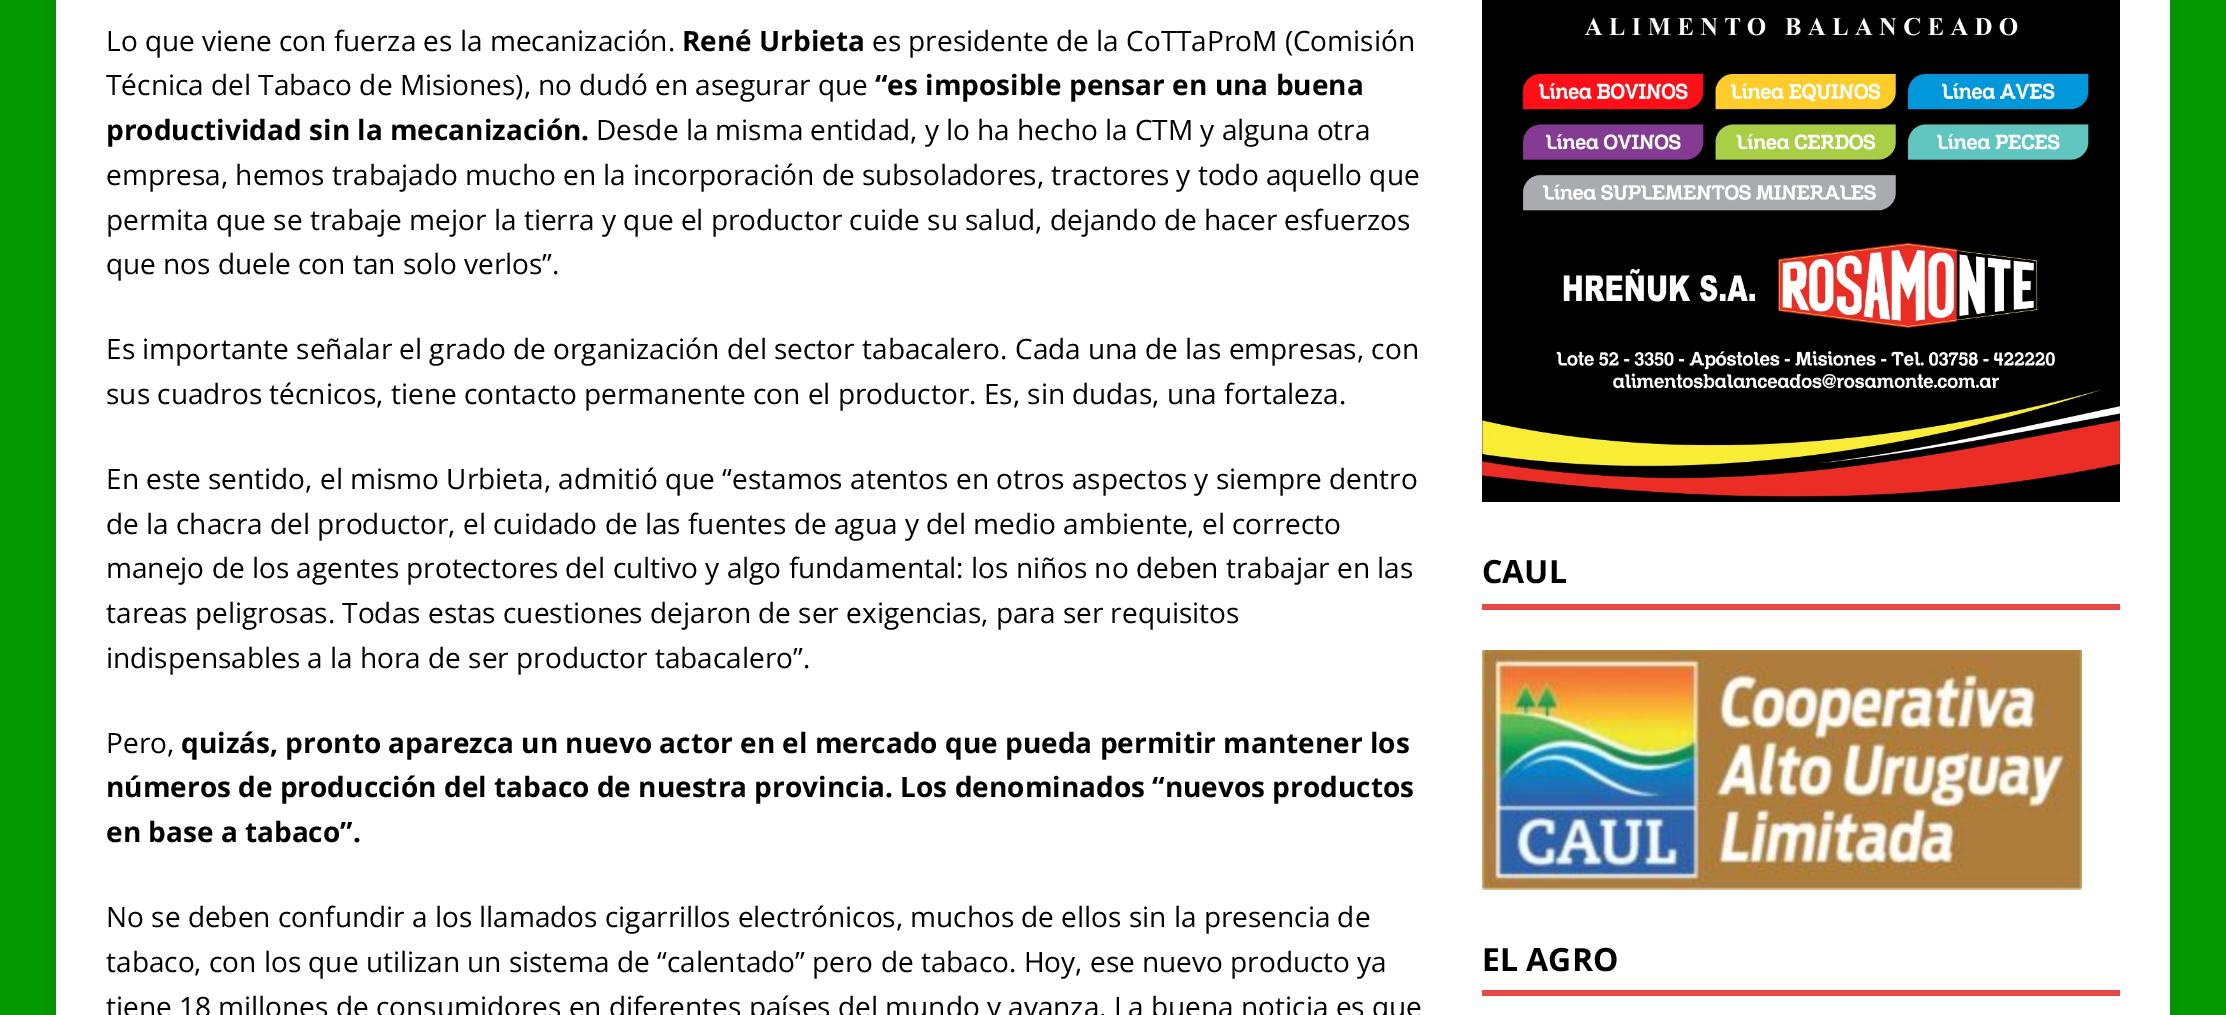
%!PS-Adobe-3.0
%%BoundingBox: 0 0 2226 1015
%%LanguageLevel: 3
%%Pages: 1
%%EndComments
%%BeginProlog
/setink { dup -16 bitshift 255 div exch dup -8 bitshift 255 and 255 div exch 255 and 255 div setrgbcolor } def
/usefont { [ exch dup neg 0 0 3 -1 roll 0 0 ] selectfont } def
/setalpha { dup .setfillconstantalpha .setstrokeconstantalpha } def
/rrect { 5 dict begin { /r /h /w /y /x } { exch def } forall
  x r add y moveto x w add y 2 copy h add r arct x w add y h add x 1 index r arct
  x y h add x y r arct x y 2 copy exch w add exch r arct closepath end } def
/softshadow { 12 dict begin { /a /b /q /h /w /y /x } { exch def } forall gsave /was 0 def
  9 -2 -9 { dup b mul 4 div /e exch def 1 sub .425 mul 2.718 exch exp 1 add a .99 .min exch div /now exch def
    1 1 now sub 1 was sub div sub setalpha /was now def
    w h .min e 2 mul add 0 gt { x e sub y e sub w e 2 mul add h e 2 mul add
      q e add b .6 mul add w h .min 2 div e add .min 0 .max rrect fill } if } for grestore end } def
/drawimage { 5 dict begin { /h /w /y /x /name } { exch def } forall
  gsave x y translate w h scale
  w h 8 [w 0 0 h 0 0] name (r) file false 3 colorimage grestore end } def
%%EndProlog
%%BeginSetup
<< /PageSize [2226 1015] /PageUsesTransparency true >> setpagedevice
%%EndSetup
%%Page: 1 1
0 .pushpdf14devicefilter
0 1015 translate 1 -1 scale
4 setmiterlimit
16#059900 setink
0 0 2226 1015 rectfill
16#323232 setink
56 -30 2114 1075 0 10 0.17 softshadow
16#FFFFFF setink
56 0 2114 1015 rectfill
/OpenSans-Regular 28 usefont
16#000000 setink
106 51 moveto (Lo que viene con fuerza es la mecanización.) show
/OpenSans-Bold 28 usefont
682 51 moveto (René Urbieta) show
/OpenSans-Regular 28 usefont
872 51 moveto (es presidente de la CoTTaProM \(Comisión) show
106 95 moveto (Técnica del Tabaco de Misiones\), no dudó en asegurar que) show
/OpenSans-Bold 28 usefont
875 95 moveto (“es imposible pensar en una buena) show
106 140 moveto (productividad sin la mecanización.) show
/OpenSans-Regular 28 usefont
[
    [(Desde la misma entidad, y lo ha hecho la CTM y alguna otra) 596 140]
    [(empresa, hemos trabajado mucho en la incorporación de subsoladores, tractores y todo aquello que) 106 185]
    [(permita que se trabaje mejor la tierra y que el productor cuide su salud, dejando de hacer esfuerzos) 106 230]
    [(que nos duele con tan solo verlos”.) 106 274]
    [(Es importante señalar el grado de organización del sector tabacalero. Cada una de las empresas, con) 106 359]
    [(sus cuadros técnicos, tiene contacto permanente con el productor. Es, sin dudas, una fortaleza.) 106 404]
    [(En este sentido, el mismo Urbieta, admitió que “estamos atentos en otros aspectos y siempre dentro) 106 489]
    [(de la chacra del productor, el cuidado de las fuentes de agua y del medio ambiente, el correcto) 106 534]
    [(manejo de los agentes protectores del cultivo y algo fundamental: los niños no deben trabajar en las) 106 578]
    [(tareas peligrosas. Todas estas cuestiones dejaron de ser exigencias, para ser requisitos) 106 623]
    [(indispensables a la hora de ser productor tabacalero”.) 106 668]
    [(Pero,) 106 753]
] { aload pop moveto show } forall
/OpenSans-Bold 28 usefont
[
    [(quizás, pronto aparezca un nuevo actor en el mercado que pueda permitir mantener los) 181 753]
    [(números de producción del tabaco de nuestra provincia. Los denominados “nuevos productos) 106 797]
    [(en base a tabaco”.) 106 842]
] { aload pop moveto show } forall
/OpenSans-Regular 28 usefont
[
    [(No se deben confundir a los llamados cigarrillos electrónicos, muchos de ellos sin la presencia de) 106 927]
    [(tabaco, con los que utilizan un sistema de “calentado” pero de tabaco. Hoy, ese nuevo producto ya) 106 972]
    [(tiene 18 millones de consumidores en diferentes países del mundo y avanza. La buena noticia es que) 106 1017]
] { aload pop moveto show } forall
(img1.raw) 1482 0 638 502 drawimage
16#E64946 setink
1482 604 638 6 rectfill
/OpenSans-Bold 32 usefont
16#000000 setink
1482 583 moveto (CAUL) show
(img2.raw) 1482 650 600 240 drawimage
16#E64946 setink
1482 990 638 6 rectfill
16#000000 setink
1482 971 moveto (EL AGRO) show
.poppdf14devicefilter showpage
%%EOF
